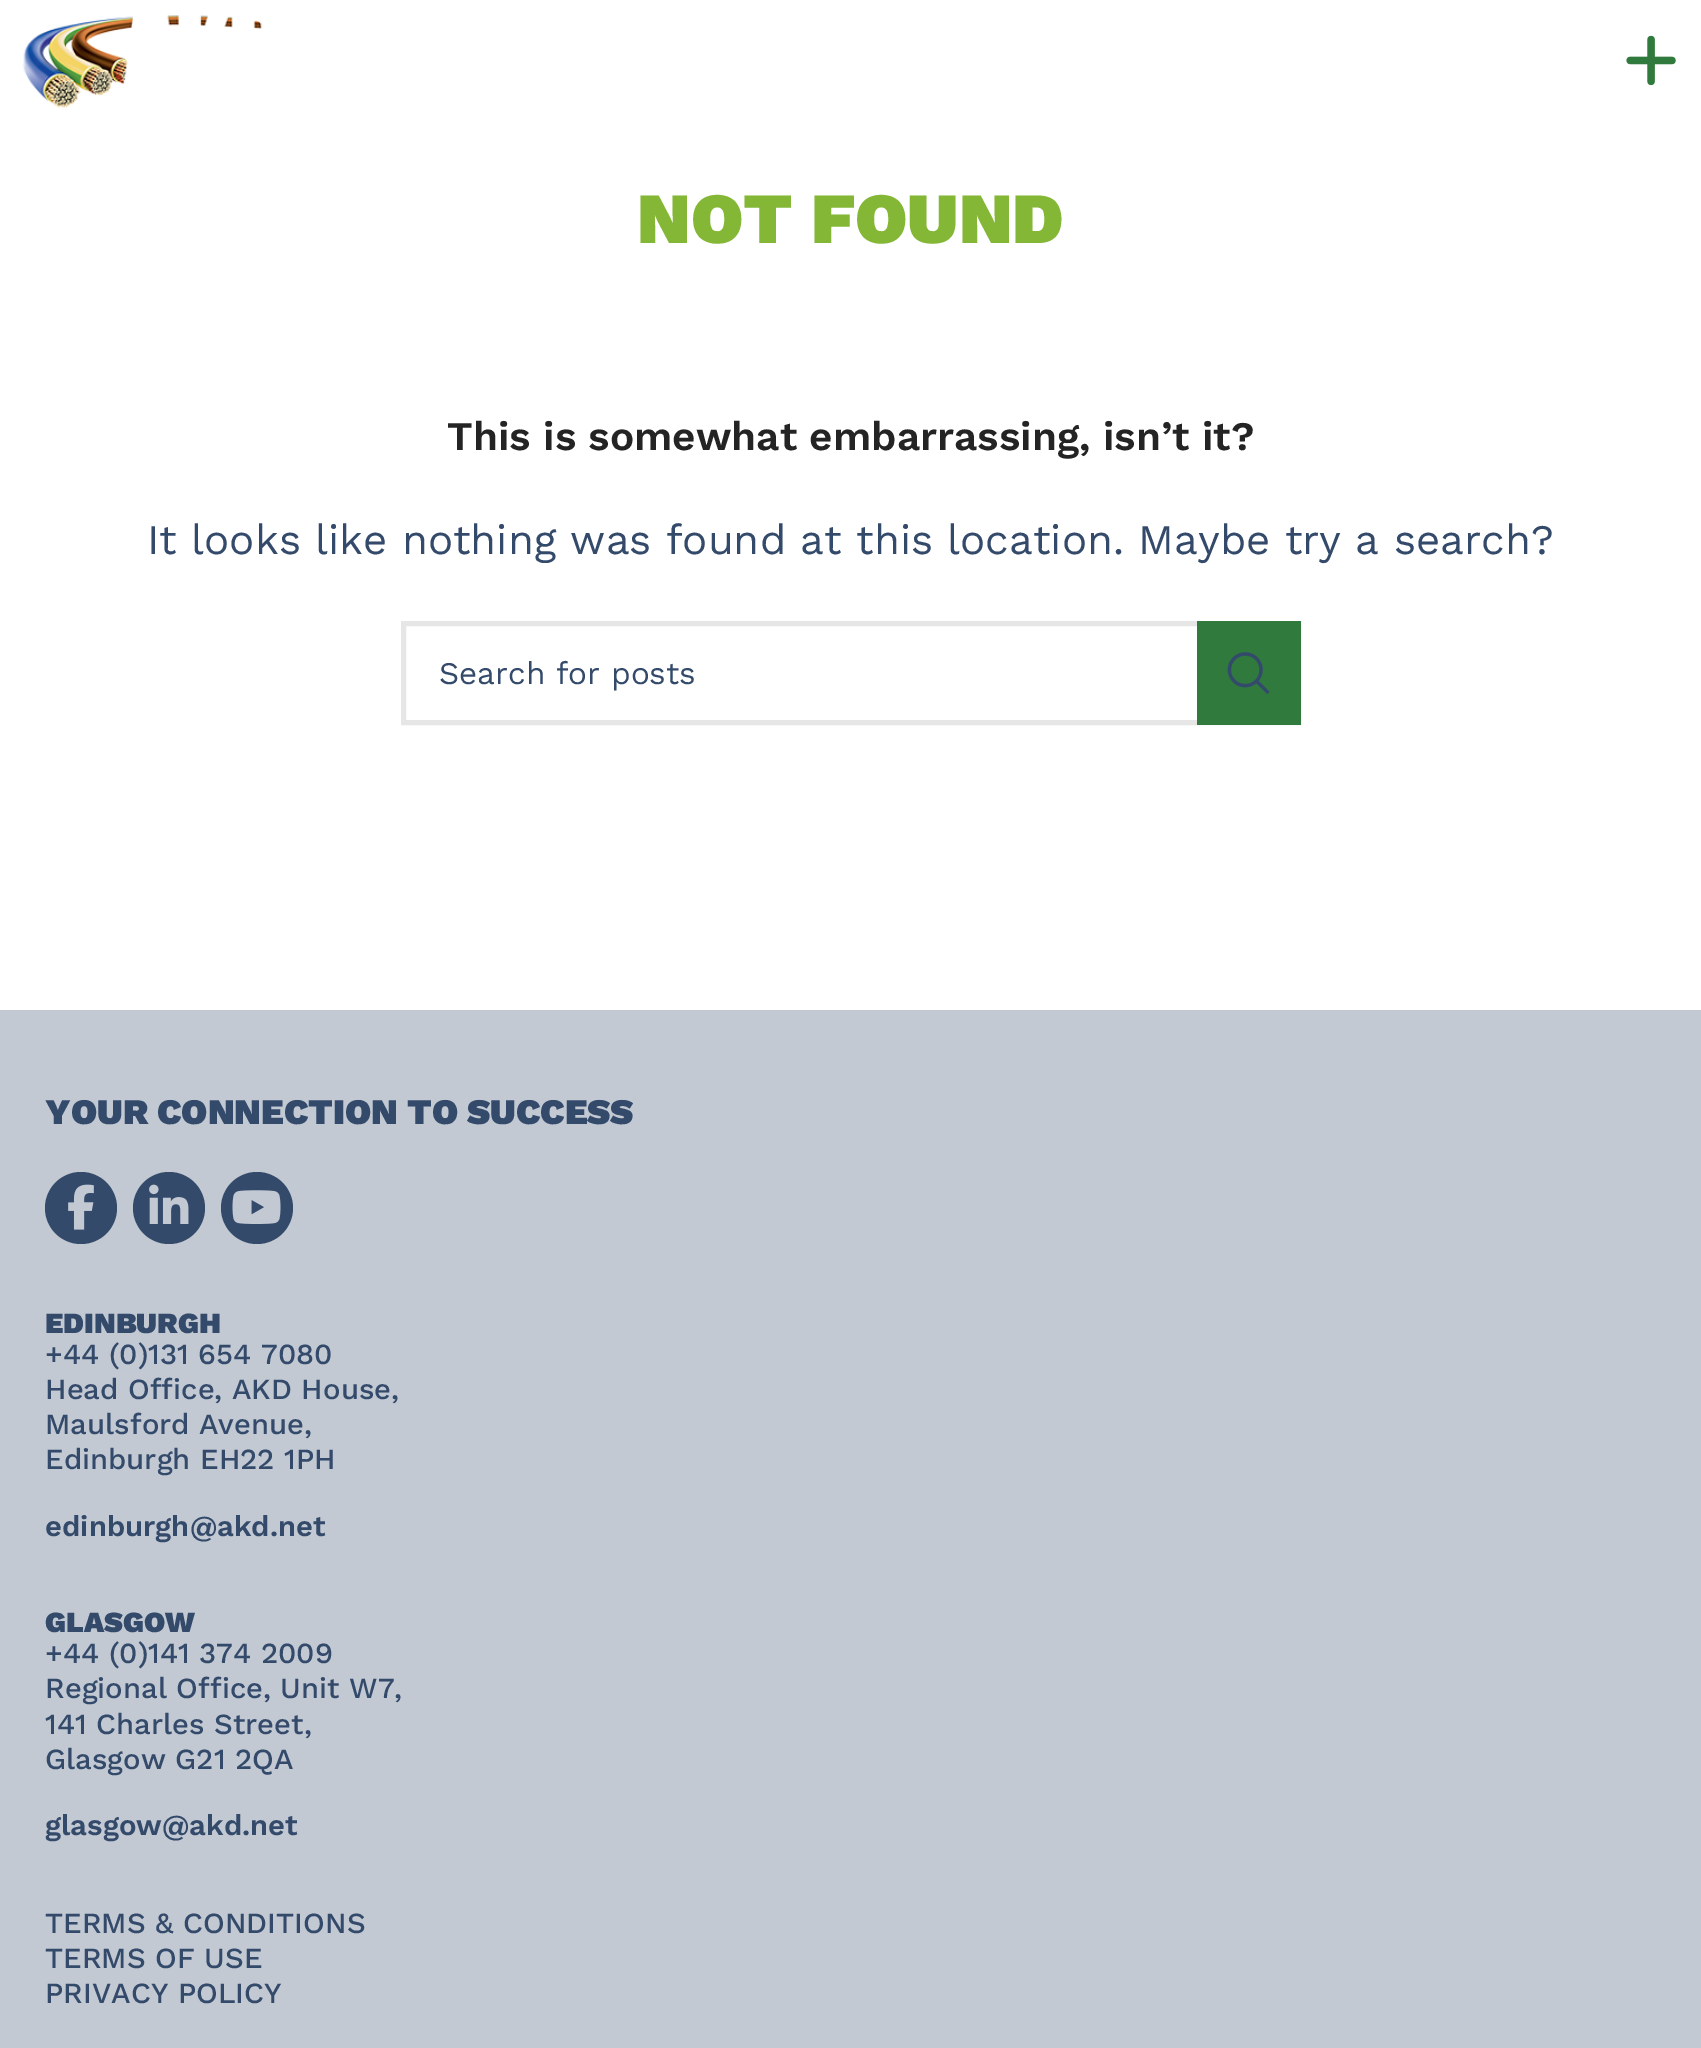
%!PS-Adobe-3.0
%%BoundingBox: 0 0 1701 2048
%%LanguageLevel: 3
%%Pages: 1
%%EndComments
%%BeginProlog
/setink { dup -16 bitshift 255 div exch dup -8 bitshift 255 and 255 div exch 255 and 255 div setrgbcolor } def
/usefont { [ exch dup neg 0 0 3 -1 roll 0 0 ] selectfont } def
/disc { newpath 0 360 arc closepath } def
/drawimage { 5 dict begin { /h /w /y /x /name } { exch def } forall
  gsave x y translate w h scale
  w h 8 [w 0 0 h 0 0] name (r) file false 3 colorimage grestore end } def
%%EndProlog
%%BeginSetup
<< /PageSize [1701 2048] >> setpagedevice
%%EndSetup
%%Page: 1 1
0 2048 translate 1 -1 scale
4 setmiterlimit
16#FFFFFF setink
0 0 1701 2048 rectfill
(img1.raw) 1626 35 50 51 drawimage
(img2.raw) 22 15 240 93 drawimage
/WorkSans-Black 72 usefont
16#83B735 setink
637 243 moveto (NOT FOUND) show
/WorkSans-SemiBold 40.5 usefont
16#242424 setink
447 450 moveto (This is somewhat embarrassing, isn’t it?) show
/WorkSans-Regular 42.05 usefont
16#344A6B setink
147 554 moveto (It looks like nothing was found at this location. Maybe try a search?) show
16#E6E6E6 setink
5 setlinewidth
403.5 623.5 895 99 rectstroke
/WorkSans-Regular 31.5 usefont
16#344A6B setink
439 684 moveto (Search for posts) show
16#307A3E setink
1197 621 104 104 rectfill
(img3.raw) 1227 652 43 42 drawimage
16#C2C9D3 setink
0 1010 1701 1038 rectfill
/WorkSans-Black 36 usefont
16#344A6B setink
45 1124 moveto (YOUR CONNECTION TO SUCCESS) show
81 1208 36 disc fill
(img4.raw) 68 1184 26 46 drawimage
169 1208 36 disc fill
(img5.raw) 149 1184 40 40 drawimage
257 1208 36 disc fill
(img6.raw) 232 1190 49 34 drawimage
/WorkSans-Black 29.25 usefont
45 1333 moveto (EDINBURGH) show
/WorkSans-Medium 29.25 usefont
[
    [(+44 \(0\)131 654 7080) 45 1364]
    [(Head Office, AKD House,) 45 1399]
    [(Maulsford Avenue,) 45 1434]
    [(Edinburgh EH22 1PH) 45 1469]
] { aload pop moveto show } forall
/WorkSans-SemiBold 29.25 usefont
45 1536 moveto (edinburgh@akd.net) show
/WorkSans-Black 29.25 usefont
45 1632 moveto (GLASGOW) show
/WorkSans-Medium 29.25 usefont
[
    [(+44 \(0\)141 374 2009) 45 1663]
    [(Regional Office, Unit W7,) 45 1698]
    [(141 Charles Street,) 45 1734]
    [(Glasgow G21 2QA) 45 1769]
] { aload pop moveto show } forall
/WorkSans-SemiBold 29.25 usefont
45 1835 moveto (glasgow@akd.net) show
/WorkSans-Medium 29.25 usefont
[
    [(TERMS & CONDITIONS) 45 1933]
    [(TERMS OF USE) 45 1968]
    [(PRIVACY POLICY) 45 2003]
] { aload pop moveto show } forall
showpage
%%EOF
